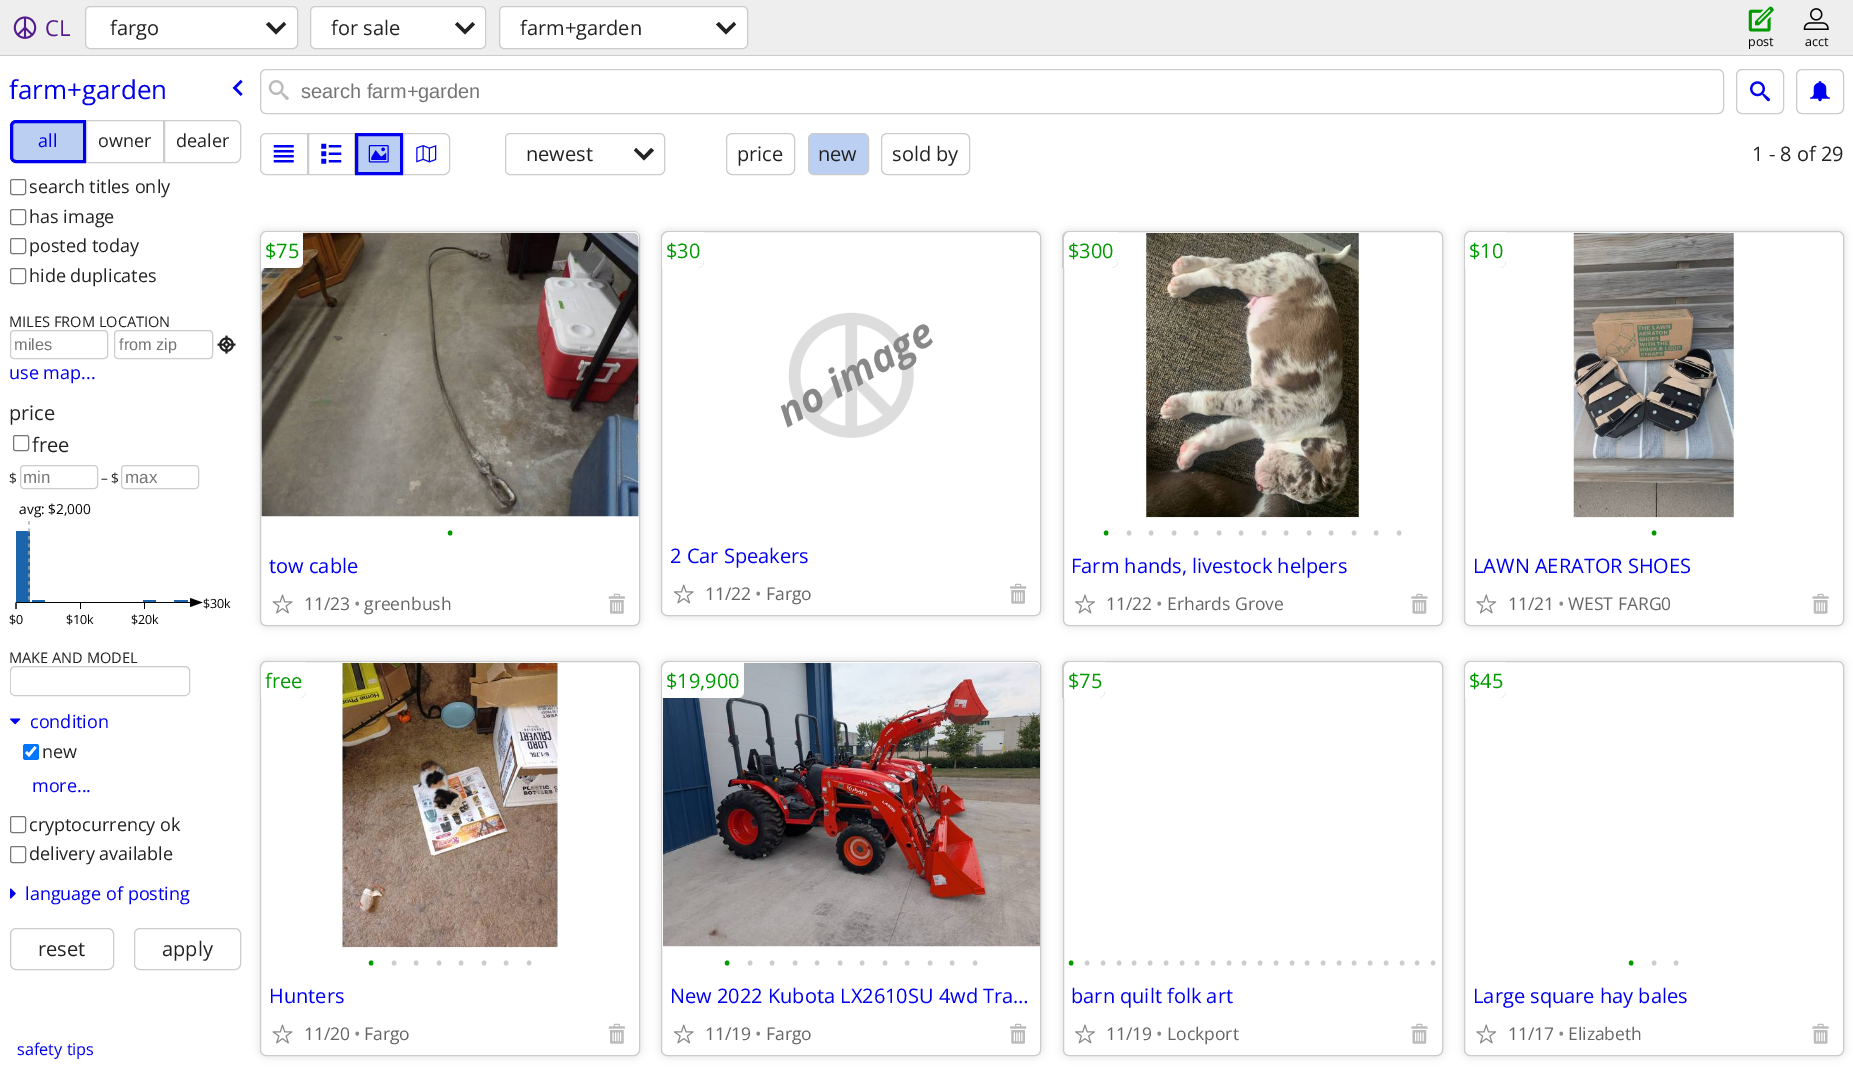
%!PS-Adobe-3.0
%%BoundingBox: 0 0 1853 1085
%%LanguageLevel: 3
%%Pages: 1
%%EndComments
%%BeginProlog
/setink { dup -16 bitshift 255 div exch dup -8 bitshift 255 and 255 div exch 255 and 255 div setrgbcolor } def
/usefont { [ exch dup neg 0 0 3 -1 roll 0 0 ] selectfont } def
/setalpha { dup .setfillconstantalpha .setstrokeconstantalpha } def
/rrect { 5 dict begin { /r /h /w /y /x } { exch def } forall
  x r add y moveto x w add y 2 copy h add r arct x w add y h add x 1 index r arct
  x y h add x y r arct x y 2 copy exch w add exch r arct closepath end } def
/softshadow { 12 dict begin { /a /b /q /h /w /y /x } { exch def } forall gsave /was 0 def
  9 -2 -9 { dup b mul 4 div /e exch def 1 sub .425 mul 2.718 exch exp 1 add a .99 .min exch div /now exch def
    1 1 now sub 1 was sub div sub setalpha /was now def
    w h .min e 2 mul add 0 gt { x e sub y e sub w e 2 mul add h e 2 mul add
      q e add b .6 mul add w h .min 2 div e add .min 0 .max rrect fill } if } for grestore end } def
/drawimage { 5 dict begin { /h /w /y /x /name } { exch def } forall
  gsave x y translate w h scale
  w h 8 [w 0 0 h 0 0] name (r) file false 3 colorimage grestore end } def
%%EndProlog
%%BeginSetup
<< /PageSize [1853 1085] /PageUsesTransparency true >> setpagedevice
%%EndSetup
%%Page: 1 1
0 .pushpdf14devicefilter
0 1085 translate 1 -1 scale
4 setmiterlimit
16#FFFFFF setink
0 0 1853 1085 rectfill
16#EEEEEE setink
0 0 1853 55 rectfill
16#CCCCCC setink
0 55 1853 1 rectfill
(img1.raw) 13 16 24 23 drawimage
/OpenSans-Regular 22 usefont
16#551A8B setink
45 36 moveto (CL) show
16#FFFFFF setink
85.5 6.5 212 42 4.5 rrect gsave fill grestore
16#CCCCCC setink
stroke
/OpenSans-Regular 20 usefont
16#222222 setink
110 35 moveto (fargo) show
286 24.5 moveto 284 22 lineto 276 29.5 lineto 269 22 lineto 266 24.5 lineto 276 34.5 lineto closepath fill
16#FFFFFF setink
310.5 6.5 175 42 4.5 rrect gsave fill grestore
16#CCCCCC setink
stroke
16#222222 setink
331 35 moveto (for sale) show
475 24.5 moveto 472.5 22 lineto 465 29.5 lineto 457.5 22 lineto 455 24.5 lineto 465 34.5 lineto closepath fill
16#FFFFFF setink
499.5 6.5 248 42 4.5 rrect gsave fill grestore
16#CCCCCC setink
stroke
16#222222 setink
520 35 moveto (farm+garden) show
736 24.5 moveto 734 22 lineto 726 29.5 lineto 719 22 lineto 716 24.5 lineto 726 34.5 lineto closepath fill
(img2.raw) 1748 6 26 26 drawimage
/OpenSans-Regular 12.5 usefont
16#000000 setink
1748 46 moveto (post) show
(img3.raw) 1803 8 26 22 drawimage
1805 46 moveto (acct) show
/OpenSans-Regular 26 usefont
16#0000EE setink
9 99 moveto (farm+garden) show
(img4.raw) 232 79 11 17 drawimage
16#BACFF2 setink
16 121.5 moveto 84.5 121.5 lineto 84.5 161.5 lineto 16 161.5 lineto 13.5 161.5 11.5 159.5 11.5 157 curveto 11.5 126 lineto 11.5 123.5 13.5 121.5 16 121.5 curveto closepath gsave fill grestore
16#0000EE setink
3 setlinewidth
stroke
/OpenSans-Regular 18 usefont
38 147 moveto (all) show
16#CCCCCC setink
1 setlinewidth
86.5 120.5 77 42 rectstroke
16#222222 setink
98 147 moveto (owner) show
16#CCCCCC setink
164.5 120.5 moveto 235 120.5 lineto 238 120.5 240.5 123 240.5 126 curveto 240.5 157 lineto 240.5 160 238 162.5 235 162.5 curveto 164.5 162.5 lineto closepath stroke
16#222222 setink
176 147 moveto (dealer) show
16#767676 setink
10.5 179.5 15 15 2 rrect stroke
16#222222 setink
29 193 moveto (search titles only) show
16#767676 setink
10.5 209.5 15 15 2 rrect stroke
16#222222 setink
29 223 moveto (has image) show
16#767676 setink
10.5 238.5 15 15 2 rrect stroke
16#222222 setink
29 252 moveto (posted today) show
16#767676 setink
10.5 268.5 15 15 2 rrect stroke
16#222222 setink
29 282 moveto (hide duplicates) show
/OpenSans-Regular 14.6 usefont
9 327 moveto (MILES FROM LOCATION) show
16#CCCCCC setink
10.5 330.5 97 28 3.5 rrect stroke
/LiberationSans-Regular 16.25 usefont
16#757575 setink
14 350 moveto (miles) show
16#CCCCCC setink
114.5 330.5 98 28 3.5 rrect stroke
16#757575 setink
119 350 moveto (from zip) show
(img5.raw) 217 335 19 19 drawimage
/OpenSans-Regular 18 usefont
16#0000EE setink
9 379 moveto (use map...) show
/OpenSans-Regular 20 usefont
16#222222 setink
9 420 moveto (price) show
16#767676 setink
13.5 435.5 15 15 2 rrect stroke
16#222222 setink
32 452 moveto (free) show
/OpenSans-Regular 13.75 usefont
9 483 moveto ($) show
16#CCCCCC setink
20.5 465.5 77 23 3.5 rrect stroke
/LiberationSans-Regular 17 usefont
16#757575 setink
23 483 moveto (min) show
/OpenSans-Regular 13.75 usefont
16#222222 setink
101 483 moveto (– $) show
16#CCCCCC setink
121.5 465.5 77 23 3.5 rrect stroke
/LiberationSans-Regular 17 usefont
16#757575 setink
125 483 moveto (max) show
16#1C64AC setink
16 531 14 71 rectfill
16#AAAAAA setink
1.2 setlinewidth
[3.75 3.75] 0 setdash
29 521 moveto 29 602.5 lineto stroke
/OpenSans-Regular 13.75 usefont
16#000000 setink
19 514 moveto (avg: $2,000) show
[
    [32 600 13 2 16#1C64AC]
    [143 600 13 2 16#1C64AC]
    [174 600 14 2 16#1C64AC]
] { aload pop setink rectfill } forall
16#000000 setink
[] 0 setdash
16 602.5 moveto 16 609 lineto stroke
[
    [80 603 1 6 16#000000]
    [144 603 1 6 16#000000]
    [16 602 174 1 16#000000]
] { aload pop setink rectfill } forall
190 598 moveto 202.5 602.5 lineto 190 607 lineto closepath fill
/OpenSans-Regular 12.5 usefont
[
    [($30k) 203 608]
    [($0) 9 624]
    [($10k) 66 624]
    [($20k) 131 624]
] { aload pop moveto show } forall
/OpenSans-Regular 14.6 usefont
16#222222 setink
9 663 moveto (MAKE AND MODEL) show
16#CCCCCC setink
1 setlinewidth
10.5 666.5 179 29 4.5 rrect stroke
gsave
11 668 178 27 4 rrect clip newpath
16#FFFFFF setink
11 668 178 27 5 rrect fill
grestore
(img6.raw) 10 718 11 7 drawimage
/OpenSans-Regular 18 usefont
16#0000EE setink
30 728 moveto (condition) show
16#0075FF setink
23 744 16 16 2.5 rrect fill
16#FFFFFF setink
2.6 setlinewidth
26 752 moveto 29 755 lineto 35.5 747 lineto stroke
16#222222 setink
42 758 moveto (new) show
16#0000EE setink
32 792 moveto (more...) show
16#767676 setink
1 setlinewidth
10.5 816.5 15 16 2 rrect stroke
16#222222 setink
29 831 moveto (cryptocurrency ok) show
16#767676 setink
10.5 846.5 15 16 2 rrect stroke
16#222222 setink
29 860 moveto (delivery available) show
(img7.raw) 10 888 6 11 drawimage
16#0000EE setink
25 900 moveto (language of posting) show
16#CCCCCC setink
10.5 928.5 103 41 5.5 rrect stroke
/OpenSans-Regular 20 usefont
16#222222 setink
38 956 moveto (reset) show
16#CCCCCC setink
134.5 928.5 106 41 5.5 rrect stroke
16#222222 setink
162 956 moveto (apply) show
/OpenSans-Regular 16.25 usefont
16#0000EE setink
17 1055 moveto (safety tips) show
16#CCCCCC setink
260.5 69.5 1463 44 5.5 rrect stroke
(img8.raw) 268 80 21 20 drawimage
/LiberationSans-Regular 20 usefont
16#757575 setink
301 98 moveto (search farm+garden) show
16#CCCCCC setink
1736.5 69.5 47 44 5.5 rrect stroke
(img9.raw) 1750 81 20 21 drawimage
1796.5 69.5 47 44 5.5 rrect stroke
(img10.raw) 1810 81 20 21 drawimage
266 133.5 moveto 307.5 133.5 lineto 307.5 174.5 lineto 266 174.5 lineto 263 174.5 260.5 172 260.5 169 curveto 260.5 139 lineto 260.5 136 263 133.5 266 133.5 curveto closepath stroke
(img11.raw) 273 145 21 18 drawimage
308.5 133.5 46 41 rectstroke
(img12.raw) 321 143 21 21 drawimage
16#BACFF2 setink
356.5 134.5 moveto 401.5 134.5 lineto 401.5 173.5 lineto 356.5 173.5 lineto closepath gsave fill grestore
16#0000EE setink
3 setlinewidth
stroke
(img13.raw) 368 145 21 18 drawimage
16#CCCCCC setink
1 setlinewidth
403.5 133.5 moveto 444 133.5 lineto 447 133.5 449.5 136 449.5 139 curveto 449.5 169 lineto 449.5 172 447 174.5 444 174.5 curveto 403.5 174.5 lineto closepath stroke
(img14.raw) 416 145 21 18 drawimage
505.5 133.5 159 41 4.5 rrect stroke
/OpenSans-Regular 20 usefont
16#222222 setink
526 161 moveto (newest) show
654 150.5 moveto 651 148 lineto 644 155.5 lineto 636 148 lineto 634 150.5 lineto 644 160.5 lineto closepath fill
16#CCCCCC setink
726.5 133.5 68 41 5.5 rrect stroke
16#222222 setink
737 161 moveto (price) show
16#BACFF2 setink
808.5 133.5 60 41 5.5 rrect gsave fill grestore
16#CCCCCC setink
stroke
16#222222 setink
818 161 moveto (new) show
16#CCCCCC setink
881.5 133.5 88 41 5.5 rrect stroke
16#222222 setink
892 161 moveto (sold by) show
1752 161 moveto (1 - 8 of 29) show
gsave
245 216 moveto 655 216 lineto 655 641 lineto 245 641 lineto closepath 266 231 moveto 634 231 lineto 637.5 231 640 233.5 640 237 curveto 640 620 lineto 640 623.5 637.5 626 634 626 curveto 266 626 lineto 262.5 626 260 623.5 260 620 curveto 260 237 lineto 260 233.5 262.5 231 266 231 curveto closepath eoclip newpath
16#DDDDDD setink
260 231 380 395 6 4.5 1 softshadow
grestore
16#CCCCCC setink
260.5 231.5 379 394 5.5 rrect stroke
(img15.raw) 261 232 378 285 drawimage
16#FFFFFF setink
266 231 moveto 303 231 lineto 303 262 lineto 303 265.5 300.5 268 297 268 curveto 260 268 lineto 260 237 lineto 260 233.5 262.5 231 266 231 curveto closepath fill
16#CCCCCC setink
266 231 moveto 302 231 lineto 302 261 lineto 302 265 300 268 296 268 curveto 260 268 lineto 260 238 lineto 260 234 263 231 266 231 curveto closepath 266 232 moveto 302 232 lineto 302 261 lineto 302 265 300 268 296 268 curveto 261 268 lineto 261 238 lineto 261 235 263 232 266 232 curveto closepath eofill
16#009900 setink
265 258 moveto ($75) show
/OpenSans-Regular 22 usefont
446 541 moveto (•) show
/OpenSans-Regular 20 usefont
16#0000EE setink
269 573 moveto (tow cable) show
(img16.raw) 272 594 21 20 drawimage
/OpenSans-Regular 17.5 usefont
16#666666 setink
304 610 moveto (11/23) show
16#888888 setink
354 610 moveto (•) show
16#666666 setink
364 610 moveto (greenbush) show
(img17.raw) 608 593 17 21 drawimage
gsave
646 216 moveto 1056 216 lineto 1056 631 lineto 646 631 lineto closepath 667 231 moveto 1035 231 lineto 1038.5 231 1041 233.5 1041 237 curveto 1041 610 lineto 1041 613.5 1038.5 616 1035 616 curveto 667 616 lineto 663.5 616 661 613.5 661 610 curveto 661 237 lineto 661 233.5 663.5 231 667 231 curveto closepath eoclip newpath
16#DDDDDD setink
661 231 380 385 6 4.5 1 softshadow
grestore
16#CCCCCC setink
661.5 231.5 379 384 5.5 rrect stroke
16#FFFFFF setink
667 231 moveto 704 231 lineto 704 262 lineto 704 265.5 701.5 268 698 268 curveto 661 268 lineto 661 237 lineto 661 233.5 663.5 231 667 231 curveto closepath fill
16#CCCCCC setink
668 231 moveto 704 231 lineto 704 261 lineto 704 265 701 268 698 268 curveto 661 268 lineto 661 238 lineto 661 234 664 231 668 231 curveto closepath 668 232 moveto 704 232 lineto 704 261 lineto 704 265 701 268 698 268 curveto 662 268 lineto 662 238 lineto 662 235 665 232 668 232 curveto closepath eofill
/OpenSans-Regular 20 usefont
16#009900 setink
666 258 moveto ($30) show
(img18.raw) 788 312 126 126 drawimage
/OpenSans-BoldItalic 40 usefont
16#888888 setink
gsave 787 428 translate -30 rotate 0 0 moveto (no image) show grestore
/OpenSans-Regular 20 usefont
16#0000EE setink
670 563 moveto (2 Car Speakers) show
(img19.raw) 673 584 21 20 drawimage
/OpenSans-Regular 17.5 usefont
16#666666 setink
705 600 moveto (11/22) show
16#888888 setink
755 600 moveto (•) show
16#666666 setink
766 600 moveto (Fargo) show
(img20.raw) 1010 583 17 21 drawimage
gsave
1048 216 moveto 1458 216 lineto 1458 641 lineto 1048 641 lineto closepath 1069 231 moveto 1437 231 lineto 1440.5 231 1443 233.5 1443 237 curveto 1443 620 lineto 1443 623.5 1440.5 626 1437 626 curveto 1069 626 lineto 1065.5 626 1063 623.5 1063 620 curveto 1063 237 lineto 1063 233.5 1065.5 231 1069 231 curveto closepath eoclip newpath
16#DDDDDD setink
1063 231 380 395 6 4.5 1 softshadow
grestore
16#CCCCCC setink
1063.5 231.5 379 394 5.5 rrect stroke
16#FFFFFF setink
1069 231 moveto 1118 231 lineto 1118 262 lineto 1118 265.5 1115.5 268 1112 268 curveto 1063 268 lineto 1063 237 lineto 1063 233.5 1065.5 231 1069 231 curveto closepath fill
16#CCCCCC setink
1069 231 moveto 1118 231 lineto 1118 261 lineto 1118 265 1115 268 1111 268 curveto 1062 268 lineto 1062 238 lineto 1062 234 1065 231 1069 231 curveto closepath 1069 232 moveto 1118 232 lineto 1118 261 lineto 1118 265 1115 268 1111 268 curveto 1064 268 lineto 1064 238 lineto 1064 235 1066 232 1069 232 curveto closepath eofill
/OpenSans-Regular 20 usefont
16#009900 setink
1068 258 moveto ($300) show
(img21.raw) 1146 232 213 286 drawimage
/OpenSans-Regular 22 usefont
1102 541 moveto (•) show
16#CCCCCC setink
[
    [(•) 1125 541]
    [(•) 1147 541]
    [(•) 1170 541]
    [(•) 1192 541]
    [(•) 1215 541]
    [(•) 1237 541]
    [(•) 1260 541]
    [(•) 1282 541]
    [(•) 1305 541]
    [(•) 1327 541]
    [(•) 1350 541]
    [(•) 1372 541]
    [(•) 1395 541]
] { aload pop moveto show } forall
/OpenSans-Regular 20 usefont
16#0000EE setink
1071 573 moveto (Farm hands, livestock helpers) show
(img22.raw) 1075 594 20 20 drawimage
/OpenSans-Regular 17.5 usefont
16#666666 setink
1106 610 moveto (11/22) show
16#888888 setink
1156 610 moveto (•) show
16#666666 setink
1167 610 moveto (Erhards Grove) show
(img23.raw) 1411 593 17 21 drawimage
gsave
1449 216 moveto 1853 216 lineto 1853 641 lineto 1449 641 lineto closepath 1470 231 moveto 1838 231 lineto 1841.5 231 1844 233.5 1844 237 curveto 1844 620 lineto 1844 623.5 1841.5 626 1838 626 curveto 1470 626 lineto 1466.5 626 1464 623.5 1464 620 curveto 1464 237 lineto 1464 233.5 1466.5 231 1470 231 curveto closepath eoclip newpath
16#DDDDDD setink
1464 231 380 395 6 4.5 1 softshadow
grestore
16#CCCCCC setink
1464.5 231.5 379 394 5.5 rrect stroke
16#FFFFFF setink
1470 231 moveto 1506 231 lineto 1506 262 lineto 1506 265.5 1503.5 268 1500 268 curveto 1464 268 lineto 1464 237 lineto 1464 233.5 1466.5 231 1470 231 curveto closepath fill
16#CCCCCC setink
1470 231 moveto 1506 231 lineto 1506 261 lineto 1506 265 1503 268 1500 268 curveto 1464 268 lineto 1464 238 lineto 1464 234 1467 231 1470 231 curveto closepath 1470 232 moveto 1506 232 lineto 1506 261 lineto 1506 265 1503 268 1500 268 curveto 1465 268 lineto 1465 238 lineto 1465 235 1467 232 1470 232 curveto closepath eofill
/OpenSans-Regular 20 usefont
16#009900 setink
1469 258 moveto ($10) show
(img24.raw) 1573 232 161 286 drawimage
/OpenSans-Regular 22 usefont
1650 541 moveto (•) show
/OpenSans-Regular 20 usefont
16#0000EE setink
1473 573 moveto (LAWN AERATOR SHOES) show
(img25.raw) 1476 594 21 20 drawimage
/OpenSans-Regular 17.5 usefont
16#666666 setink
1508 610 moveto (11/21) show
16#888888 setink
1558 610 moveto (•) show
16#666666 setink
1568 610 moveto (WEST FARG0) show
(img26.raw) 1812 593 17 21 drawimage
gsave
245 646 moveto 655 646 lineto 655 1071 lineto 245 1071 lineto closepath 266 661 moveto 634 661 lineto 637.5 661 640 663.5 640 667 curveto 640 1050 lineto 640 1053.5 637.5 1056 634 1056 curveto 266 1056 lineto 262.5 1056 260 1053.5 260 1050 curveto 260 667 lineto 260 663.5 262.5 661 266 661 curveto closepath eoclip newpath
16#DDDDDD setink
260 661 380 395 6 4.5 1 softshadow
grestore
16#CCCCCC setink
260.5 661.5 379 394 5.5 rrect stroke
16#FFFFFF setink
266 661 moveto 306 661 lineto 306 692 lineto 306 695.5 303.5 698 300 698 curveto 260 698 lineto 260 667 lineto 260 663.5 262.5 661 266 661 curveto closepath fill
16#CCCCCC setink
266 661 moveto 306 661 lineto 306 691 lineto 306 695 303 698 300 698 curveto 260 698 lineto 260 668 lineto 260 664 263 661 266 661 curveto closepath 266 662 moveto 306 662 lineto 306 691 lineto 306 695 303 698 300 698 curveto 261 698 lineto 261 668 lineto 261 665 263 662 266 662 curveto closepath eofill
/OpenSans-Regular 20 usefont
16#009900 setink
265 688 moveto (free) show
(img27.raw) 342 662 216 286 drawimage
/OpenSans-Regular 22 usefont
367 971 moveto (•) show
16#CCCCCC setink
[
    [(•) 390 971]
    [(•) 412 971]
    [(•) 435 971]
    [(•) 457 971]
    [(•) 480 971]
    [(•) 502 971]
    [(•) 525 971]
] { aload pop moveto show } forall
/OpenSans-Regular 20 usefont
16#0000EE setink
269 1003 moveto (Hunters) show
(img16.raw) 272 1024 21 20 drawimage
/OpenSans-Regular 17.5 usefont
16#666666 setink
304 1040 moveto (11/20) show
16#888888 setink
354 1040 moveto (•) show
16#666666 setink
364 1040 moveto (Fargo) show
(img17.raw) 608 1023 17 21 drawimage
gsave
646 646 moveto 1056 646 lineto 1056 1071 lineto 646 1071 lineto closepath 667 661 moveto 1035 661 lineto 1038.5 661 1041 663.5 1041 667 curveto 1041 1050 lineto 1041 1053.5 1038.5 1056 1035 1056 curveto 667 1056 lineto 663.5 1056 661 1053.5 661 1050 curveto 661 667 lineto 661 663.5 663.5 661 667 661 curveto closepath eoclip newpath
16#DDDDDD setink
661 661 380 395 6 4.5 1 softshadow
grestore
16#CCCCCC setink
661.5 661.5 379 394 5.5 rrect stroke
(img28.raw) 662 662 378 285 drawimage
16#FFFFFF setink
667 661 moveto 744 661 lineto 744 692 lineto 744 695.5 741.5 698 738 698 curveto 661 698 lineto 661 667 lineto 661 663.5 663.5 661 667 661 curveto closepath fill
16#CCCCCC setink
668 661 moveto 744 661 lineto 744 691 lineto 744 695 741 698 738 698 curveto 661 698 lineto 661 668 lineto 661 664 664 661 668 661 curveto closepath 668 662 moveto 744 662 lineto 744 691 lineto 744 695 741 698 738 698 curveto 662 698 lineto 662 668 lineto 662 665 665 662 668 662 curveto closepath eofill
/OpenSans-Regular 20 usefont
16#009900 setink
666 688 moveto ($19,900) show
/OpenSans-Regular 22 usefont
723 971 moveto (•) show
16#CCCCCC setink
[
    [(•) 746 971]
    [(•) 768 971]
    [(•) 791 971]
    [(•) 813 971]
    [(•) 836 971]
    [(•) 858 971]
    [(•) 881 971]
    [(•) 903 971]
    [(•) 926 971]
    [(•) 948 971]
    [(•) 971 971]
] { aload pop moveto show } forall
/OpenSans-Regular 20 usefont
16#0000EE setink
670 1003 moveto (New 2022 Kubota LX2610SU 4wd Tra…) show
(img19.raw) 673 1024 21 20 drawimage
/OpenSans-Regular 17.5 usefont
16#666666 setink
705 1040 moveto (11/19) show
16#888888 setink
755 1040 moveto (•) show
16#666666 setink
766 1040 moveto (Fargo) show
(img20.raw) 1010 1023 17 21 drawimage
gsave
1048 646 moveto 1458 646 lineto 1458 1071 lineto 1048 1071 lineto closepath 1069 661 moveto 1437 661 lineto 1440.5 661 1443 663.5 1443 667 curveto 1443 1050 lineto 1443 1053.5 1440.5 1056 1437 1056 curveto 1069 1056 lineto 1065.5 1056 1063 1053.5 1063 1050 curveto 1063 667 lineto 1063 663.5 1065.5 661 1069 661 curveto closepath eoclip newpath
16#DDDDDD setink
1063 661 380 395 6 4.5 1 softshadow
grestore
16#CCCCCC setink
1063.5 661.5 379 394 5.5 rrect stroke
16#FFFFFF setink
1069 661 moveto 1105 661 lineto 1105 692 lineto 1105 695.5 1102.5 698 1099 698 curveto 1063 698 lineto 1063 667 lineto 1063 663.5 1065.5 661 1069 661 curveto closepath fill
16#CCCCCC setink
1069 661 moveto 1105 661 lineto 1105 691 lineto 1105 695 1102 698 1099 698 curveto 1062 698 lineto 1062 668 lineto 1062 664 1065 661 1069 661 curveto closepath 1069 662 moveto 1105 662 lineto 1105 691 lineto 1105 695 1102 698 1099 698 curveto 1064 698 lineto 1064 668 lineto 1064 665 1066 662 1069 662 curveto closepath eofill
/OpenSans-Regular 20 usefont
16#009900 setink
1068 688 moveto ($75) show
/OpenSans-Regular 22 usefont
1067 971 moveto (•) show
16#CCCCCC setink
[
    [(•) 1083 971]
    [(•) 1099 971]
    [(•) 1115 971]
    [(•) 1130 971]
    [(•) 1146 971]
    [(•) 1162 971]
    [(•) 1178 971]
    [(•) 1193 971]
    [(•) 1209 971]
    [(•) 1225 971]
    [(•) 1240 971]
    [(•) 1256 971]
    [(•) 1272 971]
    [(•) 1288 971]
    [(•) 1303 971]
    [(•) 1319 971]
    [(•) 1335 971]
    [(•) 1350 971]
    [(•) 1366 971]
    [(•) 1382 971]
    [(•) 1398 971]
    [(•) 1413 971]
    [(•) 1429 971]
] { aload pop moveto show } forall
/OpenSans-Regular 20 usefont
16#0000EE setink
1071 1003 moveto (barn quilt folk art) show
(img22.raw) 1075 1024 20 20 drawimage
/OpenSans-Regular 17.5 usefont
16#666666 setink
1106 1040 moveto (11/19) show
16#888888 setink
1156 1040 moveto (•) show
16#666666 setink
1167 1040 moveto (Lockport) show
(img23.raw) 1411 1023 17 21 drawimage
gsave
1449 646 moveto 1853 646 lineto 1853 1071 lineto 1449 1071 lineto closepath 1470 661 moveto 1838 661 lineto 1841.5 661 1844 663.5 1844 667 curveto 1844 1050 lineto 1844 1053.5 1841.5 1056 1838 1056 curveto 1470 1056 lineto 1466.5 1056 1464 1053.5 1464 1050 curveto 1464 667 lineto 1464 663.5 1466.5 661 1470 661 curveto closepath eoclip newpath
16#DDDDDD setink
1464 661 380 395 6 4.5 1 softshadow
grestore
16#CCCCCC setink
1464.5 661.5 379 394 5.5 rrect stroke
16#FFFFFF setink
1470 661 moveto 1506 661 lineto 1506 692 lineto 1506 695.5 1503.5 698 1500 698 curveto 1464 698 lineto 1464 667 lineto 1464 663.5 1466.5 661 1470 661 curveto closepath fill
16#CCCCCC setink
1470 661 moveto 1506 661 lineto 1506 691 lineto 1506 695 1503 698 1500 698 curveto 1464 698 lineto 1464 668 lineto 1464 664 1467 661 1470 661 curveto closepath 1470 662 moveto 1506 662 lineto 1506 691 lineto 1506 695 1503 698 1500 698 curveto 1465 698 lineto 1465 668 lineto 1465 665 1467 662 1470 662 curveto closepath eofill
/OpenSans-Regular 20 usefont
16#009900 setink
1469 688 moveto ($45) show
/OpenSans-Regular 22 usefont
1627 971 moveto (•) show
16#CCCCCC setink
1650 971 moveto (•) show
1672 971 moveto (•) show
/OpenSans-Regular 20 usefont
16#0000EE setink
1473 1003 moveto (Large square hay bales) show
(img25.raw) 1476 1024 21 20 drawimage
/OpenSans-Regular 17.5 usefont
16#666666 setink
1508 1040 moveto (11/17) show
16#888888 setink
1558 1040 moveto (•) show
16#666666 setink
1568 1040 moveto (Elizabeth) show
(img26.raw) 1812 1023 17 21 drawimage
.poppdf14devicefilter showpage
%%EOF
